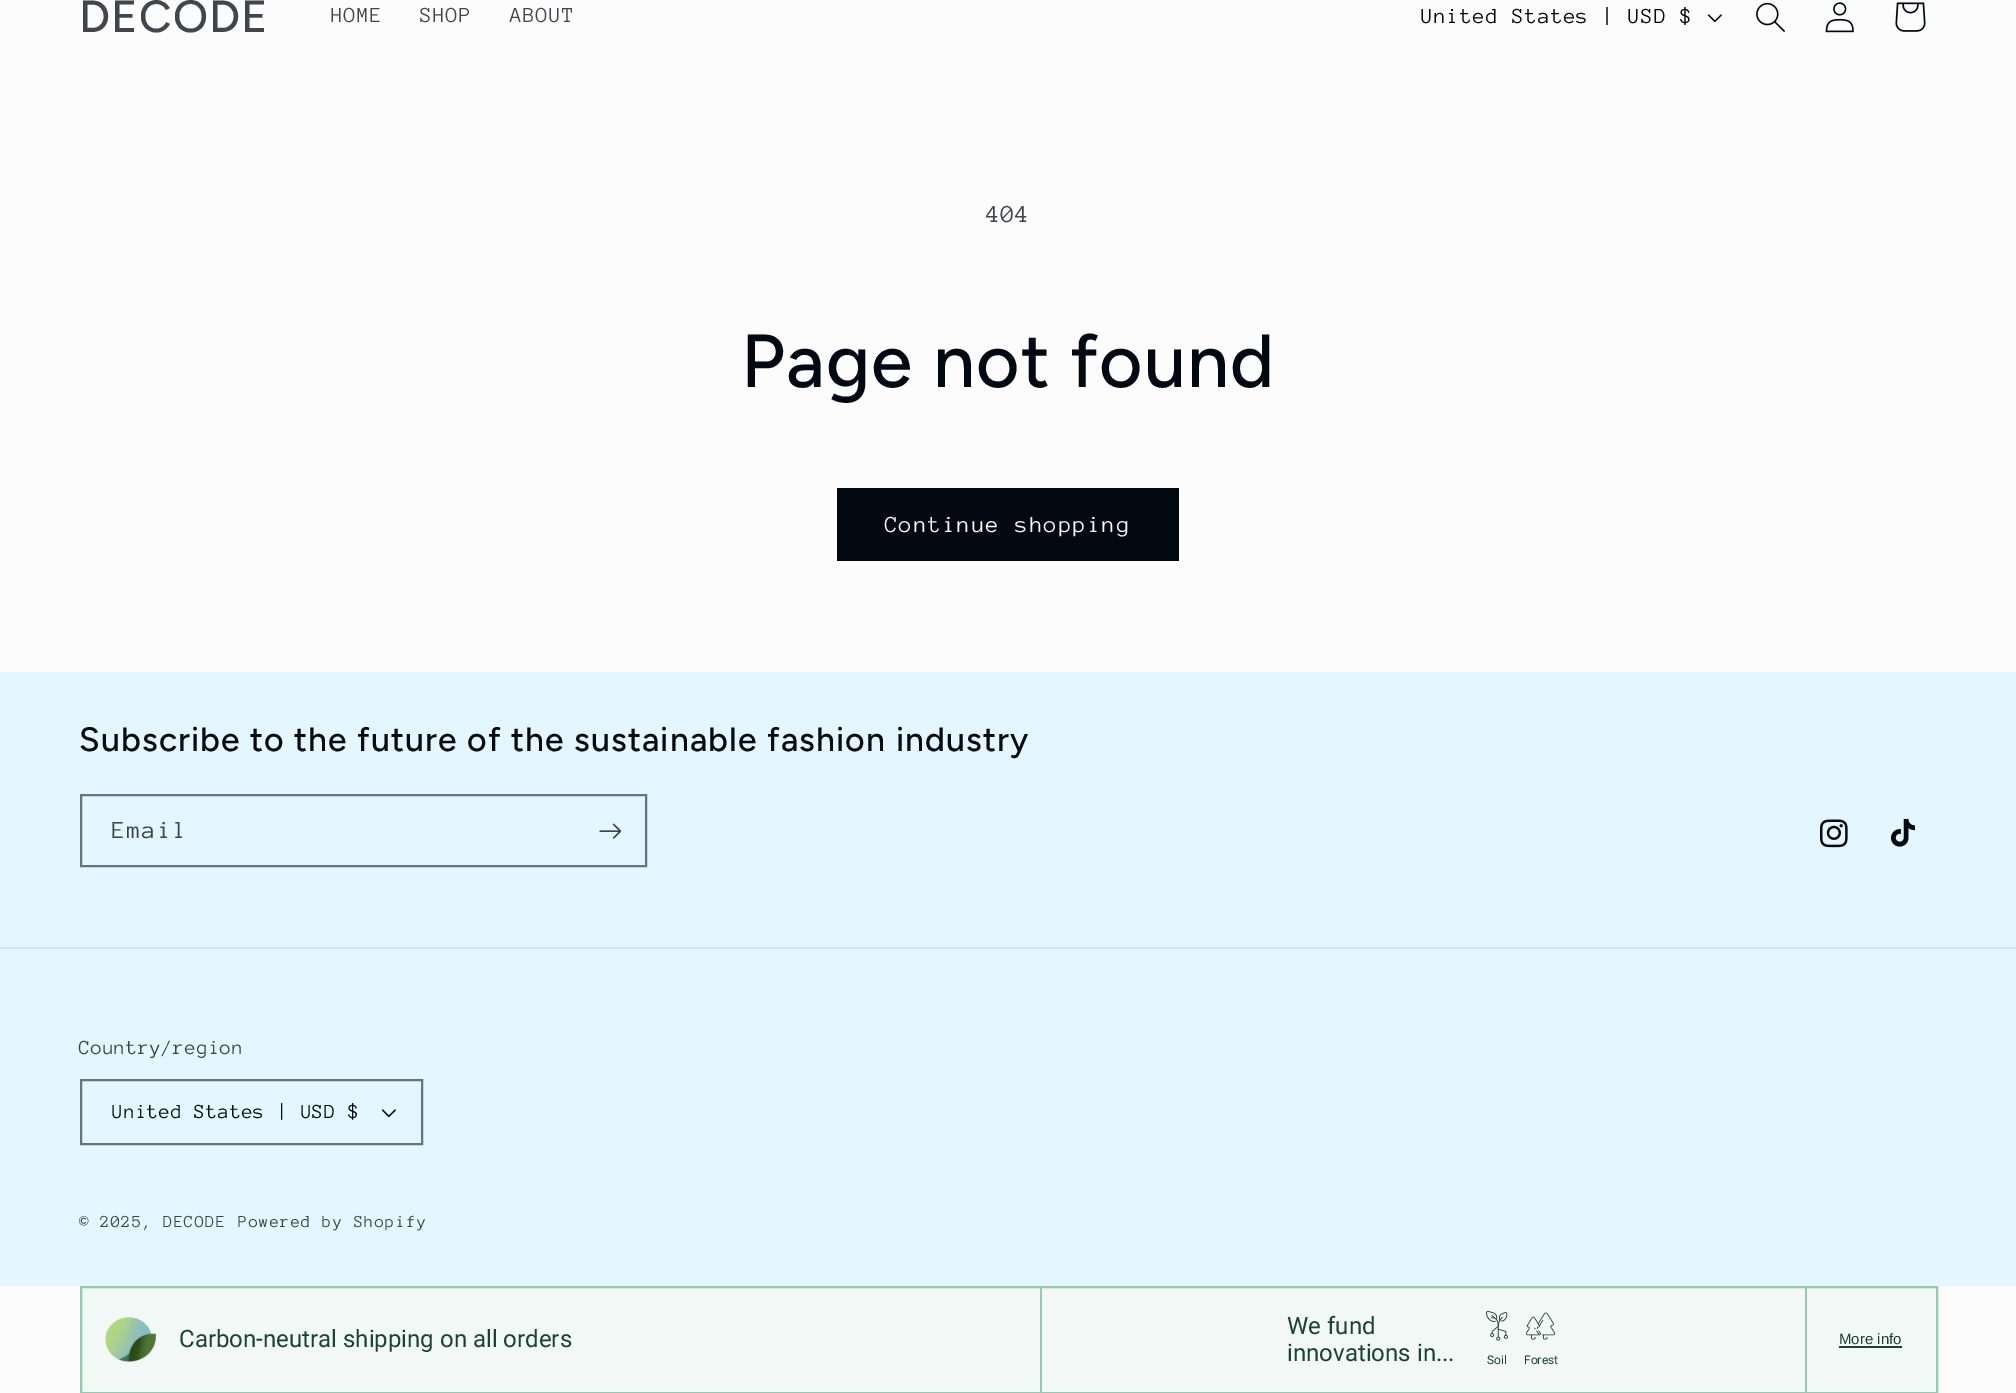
%!PS-Adobe-3.0
%%BoundingBox: 0 0 2016 1393
%%LanguageLevel: 3
%%Pages: 1
%%EndComments
%%BeginProlog
/setink { dup -16 bitshift 255 div exch dup -8 bitshift 255 and 255 div exch 255 and 255 div setrgbcolor } def
/usefont { [ exch dup neg 0 0 3 -1 roll 0 0 ] selectfont } def
/drawimage { 5 dict begin { /h /w /y /x /name } { exch def } forall
  gsave x y translate w h scale
  w h 8 [w 0 0 h 0 0] name (r) file false 3 colorimage grestore end } def
%%EndProlog
%%BeginSetup
<< /PageSize [2016 1393] >> setpagedevice
%%EndSetup
%%Page: 1 1
0 1393 translate 1 -1 scale
4 setmiterlimit
16#FCFCFC setink
0 0 2016 1393 rectfill
/Figtree-Medium 45 usefont
16#41464D setink
79 32 moveto 1.12 0 (DECODE) ashow
/AnonymousPro-Regular 22 usefont
331 22 moveto 0.95 0 (HOME) ashow
420 22 moveto 0.95 0 (SHOP) ashow
510 22 moveto 0.95 0 (ABOUT) ashow
16#020912 setink
1421 23 moveto 0.95 0 (United States | USD $) ashow
(img1.raw) 1707 14 15 9 drawimage
(img2.raw) 1756 2 29 30 drawimage
(img3.raw) 1825 2 29 31 drawimage
(img4.raw) 1895 2 31 30 drawimage
/AnonymousPro-Regular 25 usefont
16#41464D setink
986 222 moveto 0.95 0 (404) ashow
/Figtree-Medium 75 usefont
16#020912 setink
741 387 moveto 1.12 0 (Page not found) ashow
837 488 342 73 rectfill
/AnonymousPro-Regular 23.6 usefont
16#FCFCFC setink
885 532 moveto 1.6 0 (Continue shopping) ashow
16#E4F6FF setink
0 672 2016 614 rectfill
/Figtree-Medium 33.75 usefont
16#020912 setink
79 751 moveto 1.12 0 (Subscribe to the future of the sustainable fashion industry) ashow
16#68747D setink
2 setlinewidth
81 795 565 71 rectstroke
/AnonymousPro-Regular 25 usefont
16#3B444D setink
112 838 moveto 1.6 0 (Email) ashow
(img5.raw) 599 823 22 16 drawimage
(img6.raw) 1819 819 29 29 drawimage
(img7.raw) 1890 818 26 29 drawimage
16#D2E3EC setink
0 947 2016 2 rectfill
/AnonymousPro-Regular 20.5 usefont
16#3B444D setink
79 1054 moveto 0.6 0 (Country/region) ashow
(img8.raw) 381 1109 15 9 drawimage
16#68747D setink
81 1080 341 64 rectstroke
16#020912 setink
112 1118 moveto 0.6 0 (United States | USD $) ashow
/AnonymousPro-Regular 17.25 usefont
16#3B444D setink
79 1227 moveto 1.1 0 (© 2025, DECODE) ashow
238 1227 moveto 1.1 0 (Powered by Shopify) ashow
16#F1F8F5 setink
81 1287 moveto 1937 1287 lineto 1937 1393 lineto 81 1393 lineto closepath gsave fill grestore
16#95C9B4 setink
stroke
1040 1287 2 105 rectfill
(img9.raw) 105 1317 51 45 drawimage
/Roboto-Regular 24 usefont
16#1D4136 setink
179 1347 moveto (Carbon-neutral shipping on all orders) show
16#95C9B4 setink
1805 1287 2 105 rectfill
16#1D4136 setink
1287 1334 moveto (We fund) show
1287 1361 moveto (innovations in...) show
(img10.raw) 1486 1311 22 30 drawimage
/Roboto-Regular 12 usefont
1487 1364 moveto (Soil) show
(img11.raw) 1526 1312 30 28 drawimage
1524 1364 moveto (Forest) show
/LiberationSans-Regular 15 usefont
1839 1344 moveto (More info) show
1839 1346 63 2 rectfill
showpage
%%EOF
